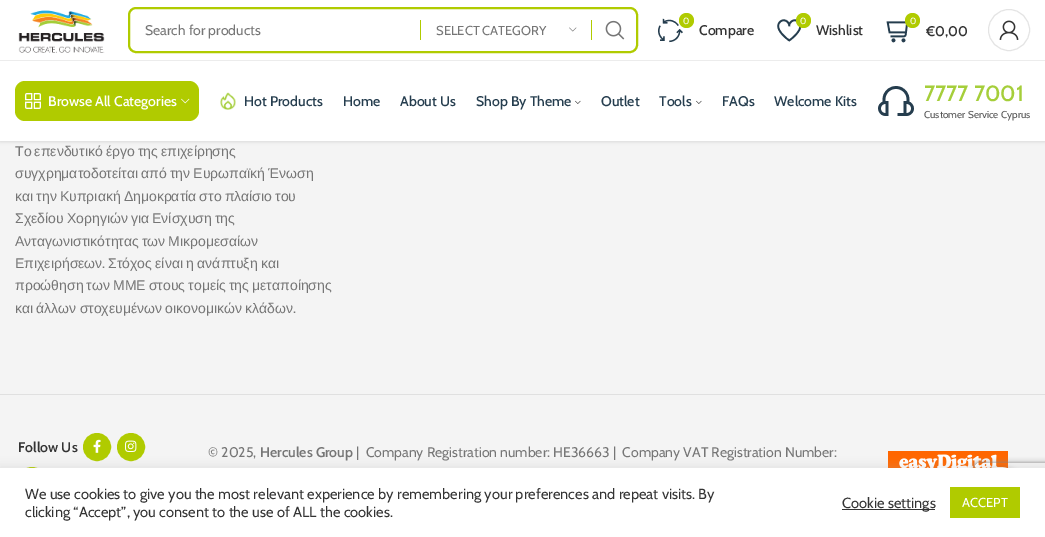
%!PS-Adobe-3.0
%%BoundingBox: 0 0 1045 537
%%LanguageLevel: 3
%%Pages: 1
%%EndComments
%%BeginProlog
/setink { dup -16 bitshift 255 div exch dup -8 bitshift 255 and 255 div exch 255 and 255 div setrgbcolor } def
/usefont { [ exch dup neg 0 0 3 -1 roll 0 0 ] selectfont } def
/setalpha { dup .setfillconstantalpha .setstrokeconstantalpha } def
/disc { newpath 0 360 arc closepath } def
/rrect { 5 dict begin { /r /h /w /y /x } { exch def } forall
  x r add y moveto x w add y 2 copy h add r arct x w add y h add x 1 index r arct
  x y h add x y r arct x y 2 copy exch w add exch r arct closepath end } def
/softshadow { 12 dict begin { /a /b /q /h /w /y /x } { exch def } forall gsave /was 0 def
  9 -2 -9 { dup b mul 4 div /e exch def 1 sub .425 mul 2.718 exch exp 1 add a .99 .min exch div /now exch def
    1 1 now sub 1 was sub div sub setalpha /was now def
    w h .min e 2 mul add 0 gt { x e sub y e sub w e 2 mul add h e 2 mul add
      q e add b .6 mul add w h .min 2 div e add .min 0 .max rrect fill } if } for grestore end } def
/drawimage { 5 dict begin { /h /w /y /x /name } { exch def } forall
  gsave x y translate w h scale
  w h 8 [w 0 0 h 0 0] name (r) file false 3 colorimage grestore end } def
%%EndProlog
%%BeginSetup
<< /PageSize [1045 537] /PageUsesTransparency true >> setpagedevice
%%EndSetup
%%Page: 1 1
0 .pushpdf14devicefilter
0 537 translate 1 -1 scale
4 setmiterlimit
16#F4F4F4 setink
0 0 1045 537 rectfill
16#000000 setink
0 1 1045 141 0 1.5 0.1 softshadow
16#FFFFFF setink
0 0 1045 60 rectfill
16#ECECEC setink
0 60 1045 1 rectfill
(img1.raw) 18 10 87 43 drawimage
16#B0CB00 setink
2 setlinewidth
129 8 508 44 7 rrect stroke
/Cabin-Regular 14 usefont
16#767676 setink
145 35 moveto (Search for products) show
16#B0CB00 setink
591 20 1 20 rectfill
420 20 1 20 rectfill
/Cabin-Regular 13 usefont
16#767676 setink
436 35 moveto (SELECT CATEGORY) show
(img2.raw) 569 27 8 5 drawimage
(img3.raw) 605 20 20 20 drawimage
(img4.raw) 658 18 25 25 drawimage
16#B0CB00 setink
686.5 20.5 7.5 disc fill
/Cabin-Regular 9 usefont
16#FFFFFF setink
683 24 moveto (0) show
/Cabin-Medium 14 usefont
16#333333 setink
699 35 moveto (Compare) show
(img5.raw) 777 19 25 23 drawimage
16#B0CB00 setink
803.5 20.5 7.5 disc fill
/Cabin-Regular 9 usefont
16#FFFFFF setink
800 24 moveto (0) show
/Cabin-Medium 14 usefont
16#333333 setink
816 35 moveto (Wishlist) show
(img6.raw) 886 21 22 22 drawimage
16#B0CB00 setink
912.5 20.5 7.5 disc fill
/Cabin-Regular 9 usefont
16#FFFFFF setink
910 24 moveto (0) show
/Cabin-Medium 14 usefont
16#333333 setink
926 36 moveto (€0,00) show
16#E4E4E4 setink
1 setlinewidth
1009 30 20.5 disc stroke
(img7.raw) 999 20 20 20 drawimage
16#FFFFFF setink
0 61 1045 80 rectfill
16#B0CB00 setink
15 81 184 40 10 rrect fill
(img8.raw) 25 93 16 16 drawimage
16#FFFFFF setink
48 106 moveto (Browse All Categories) show
(img9.raw) 181 98 9 6 drawimage
(img10.raw) 220 92 16 18 drawimage
16#253D4E setink
[
    [(Hot Products) 244 106]
    [(Home) 343 106]
    [(About Us) 400 106]
    [(Shop By Theme) 476 106]
] { aload pop moveto show } forall
(img11.raw) 575 100 6 4 drawimage
601 106 moveto (Outlet) show
659 106 moveto (Tools) show
(img11.raw) 696 100 6 4 drawimage
722 106 moveto (FAQs) show
774 106 moveto (Welcome Kits) show
(img12.raw) 878 86 36 30 drawimage
/Cabin-SemiBold 22 usefont
16#A5CE3A setink
924 101 moveto (7777 7001) show
/Cabin-Regular 10 usefont
16#555555 setink
924 118 moveto (Customer Service Cyprus) show
/LiberationSans-Regular 14 usefont
16#767676 setink
15 156 moveto -0.75 0 32 (Το επενδυτικό έργο της επιχείρησης) widthshow
15 178 moveto -0.75 0 32 (συγχρηματοδοτείται από την Ευρωπαϊκή Ένωση) widthshow
15 201 moveto -0.75 0 32 (και την Κυπριακή Δημοκρατία στο πλαίσιο του) widthshow
15 223 moveto -0.75 0 32 (Σχεδίου Χορηγιών για Ενίσχυση της) widthshow
15 246 moveto -0.75 0 32 (Ανταγωνιστικότητας των Μικρομεσαίων) widthshow
15 268 moveto (Επιχειρήσεων) show
/Cabin-Regular 14 usefont
102 268 moveto (.) show
/LiberationSans-Regular 14 usefont
108 268 moveto -0.5 0 32 (Στόχος είναι η ανάπτυξη και) widthshow
15 290 moveto -0.75 0 32 (προώθηση των ΜΜΕ στους τομείς της μεταποίησης) widthshow
15 313 moveto -0.75 0 32 (και άλλων στοχευμένων οικονομικών κλάδων) widthshow
/Cabin-Regular 14 usefont
293 313 moveto (.) show
16#E0E0E0 setink
0 394 1045 1 rectfill
/Cabin-SemiBold 14 usefont
16#333333 setink
18 452 moveto (Follow Us) show
16#B0CB00 setink
97 447 13 disc gsave fill grestore
2 setlinewidth
stroke
(img13.raw) 93 439 8 14 drawimage
131 447 13 disc gsave fill grestore
stroke
(img14.raw) 125 440 12 12 drawimage
32 481 13 disc stroke
/Cabin-Regular 14 usefont
16#767676 setink
208 457 moveto (© 2025,) show
/Cabin-SemiBold 14 usefont
260 457 moveto (Hercules Group) show
/Cabin-Regular 14 usefont
356 457 moveto (|  Company Registration number: HE36663 |  Company VAT Registration Number:) show
16#FF6600 setink
888 451 120 17 rectfill
(img15.raw) 899 454 99 14 drawimage
gsave
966 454 moveto 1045 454 lineto 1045 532 lineto 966 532 lineto closepath 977 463 moveto 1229 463 lineto 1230 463 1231 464 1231 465 curveto 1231 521 lineto 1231 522 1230 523 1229 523 curveto 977 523 lineto 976 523 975 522 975 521 curveto 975 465 lineto 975 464 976 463 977 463 curveto closepath eoclip newpath
16#808080 setink
975 463 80 60 2 2.5 1 softshadow
grestore
16#000000 setink
975 467 50 50 25 2.5 0.17 softshadow
0.9 setalpha
16#FFFFFF setink
1000 492 25 disc fill
1 setalpha
16#ACABAB setink
0 467 1045 69 0 5 0.3 softshadow
16#FFFFFF setink
0 468 1045 69 rectfill
/Cabin-Regular 14.65 usefont
16#333333 setink
25 499 moveto (We use cookies to give you the most relevant experience by remembering your preferences and repeat visits. By) show
25 517 moveto (clicking “Accept”, you consent to the use of ALL the cookies.) show
842 509 93 1 rectfill
842 508 moveto (Cookie settings) show
16#B0CB00 setink
950 487 70 31 rectfill
/Cabin-Regular 13 usefont
16#FFFFFF setink
962 507 moveto (ACCEPT) show
.poppdf14devicefilter showpage
%%EOF
